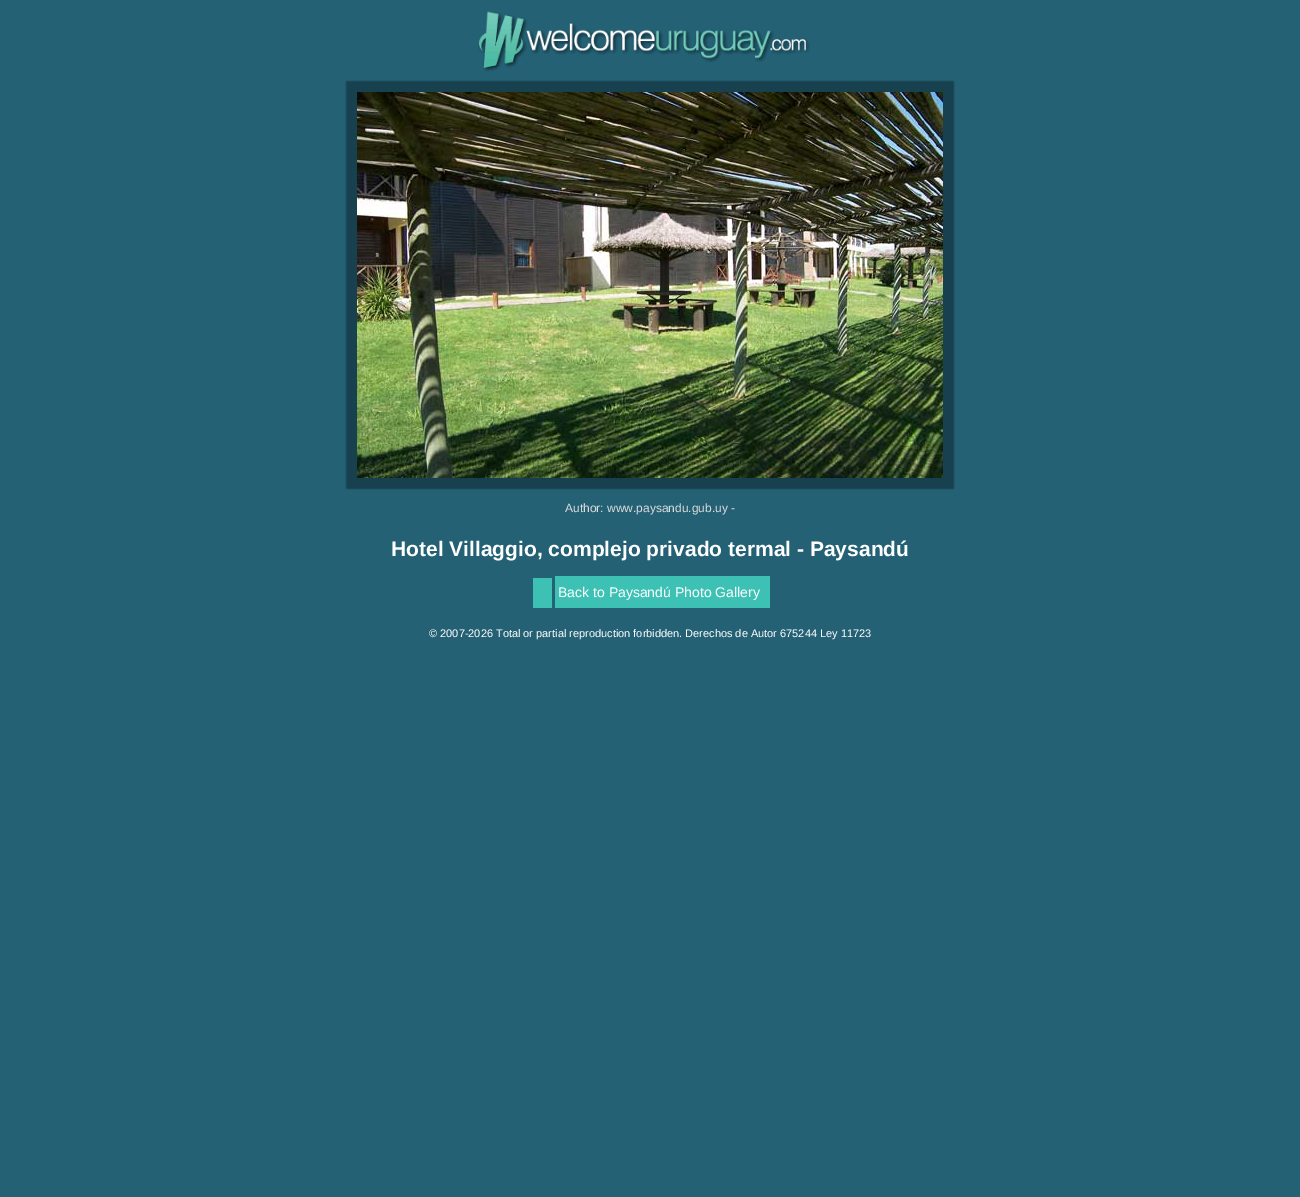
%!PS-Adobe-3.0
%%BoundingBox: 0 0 1300 1197
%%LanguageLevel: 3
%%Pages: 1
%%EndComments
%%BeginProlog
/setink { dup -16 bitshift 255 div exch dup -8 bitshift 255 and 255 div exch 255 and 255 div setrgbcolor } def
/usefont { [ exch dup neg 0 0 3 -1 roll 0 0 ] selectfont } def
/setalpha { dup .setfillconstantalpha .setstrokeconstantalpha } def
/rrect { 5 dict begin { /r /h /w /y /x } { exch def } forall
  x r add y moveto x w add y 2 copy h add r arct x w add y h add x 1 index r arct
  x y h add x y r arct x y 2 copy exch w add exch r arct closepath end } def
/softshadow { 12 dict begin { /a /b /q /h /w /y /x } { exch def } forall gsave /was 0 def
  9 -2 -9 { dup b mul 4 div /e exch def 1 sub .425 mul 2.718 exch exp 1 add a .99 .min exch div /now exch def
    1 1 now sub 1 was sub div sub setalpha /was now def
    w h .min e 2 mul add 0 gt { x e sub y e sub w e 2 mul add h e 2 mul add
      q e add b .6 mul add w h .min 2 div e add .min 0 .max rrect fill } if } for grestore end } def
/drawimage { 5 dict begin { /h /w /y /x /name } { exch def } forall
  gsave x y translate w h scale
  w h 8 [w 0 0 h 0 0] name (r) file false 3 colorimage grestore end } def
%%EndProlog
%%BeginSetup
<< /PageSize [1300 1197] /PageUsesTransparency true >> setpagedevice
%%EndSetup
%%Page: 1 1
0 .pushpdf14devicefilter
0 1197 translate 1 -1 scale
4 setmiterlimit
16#246175 setink
0 0 1300 1197 rectfill
(img1.raw) 478 11 332 61 drawimage
16#000000 setink
347 82 606 406 0 1 0.8 softshadow
16#18414F setink
10 setlinewidth
352 87 596 396 rectstroke
(img2.raw) 357 92 586 386 drawimage
/LiberationSans-Regular 12 usefont
16#DCDCDC setink
565 512 moveto (Author: www.paysandu.gub.uy -) show
/LiberationSans-Bold 21 usefont
16#FFFFFF setink
391 556 moveto (Hotel Villaggio, complejo privado termal - Paysandú) show
16#3CC1B4 setink
555 576 215 32 rectfill
/LiberationSans-Regular 14 usefont
16#FFFFFF setink
558 597 moveto (Back to Paysandú Photo Gallery) show
16#3CC1B4 setink
533 578 19 30 rectfill
/LiberationSans-Regular 11 usefont
16#FFFFFF setink
429 637 moveto (© 2007-2026 Total or partial reproduction forbidden. Derechos de Autor 675244 Ley 11723) show
.poppdf14devicefilter showpage
%%EOF
